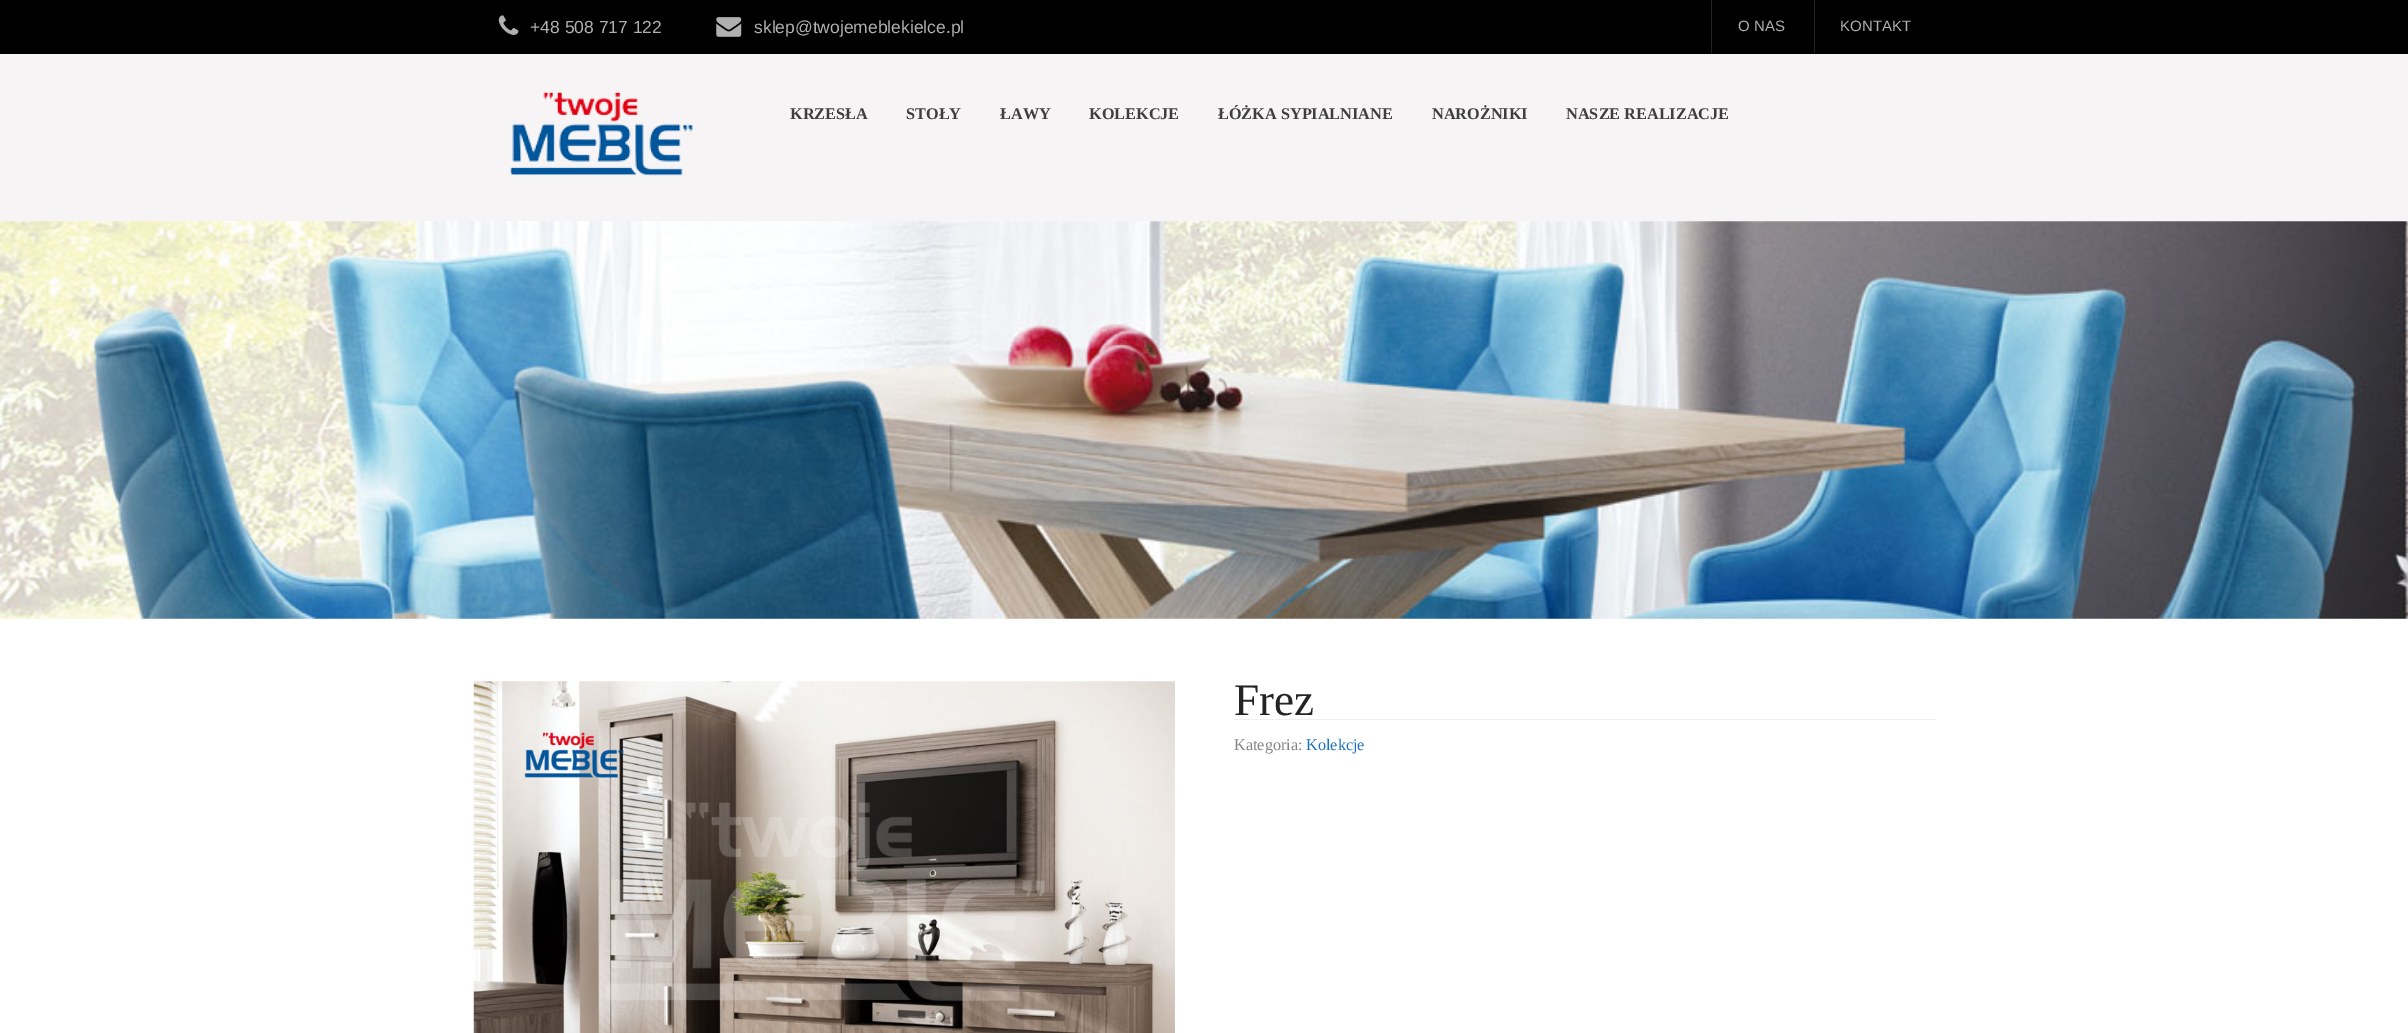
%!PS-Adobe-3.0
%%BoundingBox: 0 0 2408 1033
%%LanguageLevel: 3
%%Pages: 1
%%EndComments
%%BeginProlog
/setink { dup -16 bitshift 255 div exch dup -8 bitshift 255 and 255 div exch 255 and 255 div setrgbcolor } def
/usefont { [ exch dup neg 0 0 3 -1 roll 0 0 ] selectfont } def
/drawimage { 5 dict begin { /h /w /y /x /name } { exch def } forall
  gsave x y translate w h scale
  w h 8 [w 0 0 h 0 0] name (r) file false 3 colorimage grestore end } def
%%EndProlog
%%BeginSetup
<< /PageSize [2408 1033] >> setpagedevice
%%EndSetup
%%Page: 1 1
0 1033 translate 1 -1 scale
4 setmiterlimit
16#FFFFFF setink
0 0 2408 1033 rectfill
16#000000 setink
0 0 2408 54 rectfill
(img1.raw) 498 15 21 20 drawimage
/Arimo-Regular 17.5 usefont
16#B0B0B0 setink
530 33 moveto (+48 508 717 122) show
(img2.raw) 716 17 26 20 drawimage
754 33 moveto (sklep@twojemeblekielce.pl) show
16#232323 setink
1711 0 1 53 rectfill
/Arimo-Regular 15 usefont
16#B0B0B0 setink
1738 31 moveto (O NAS) show
16#232323 setink
1814 0 1 53 rectfill
16#B0B0B0 setink
1840 31 moveto (KONTAKT) show
16#F6F4F4 setink
0 54 2408 167 rectfill
(img3.raw) 509 91 184 85 drawimage
/LiberationSerif-Bold 16.25 usefont
16#3E3E3E setink
[
    [(KRZESŁA) 790 119]
    [(STOŁY) 906 119]
    [(ŁAWY) 1000 119]
    [(KOLEKCJE) 1089 119]
    [(ŁÓŻKA SYPIALNIANE) 1218 119]
    [(NAROŻNIKI) 1432 119]
    [(NASZE REALIZACJE) 1566 119]
] { aload pop moveto show } forall
(img4.raw) 0 221 2408 398 drawimage
(img5.raw) 473 681 702 352 drawimage
16#EFEFEF setink
1234 719 702 1 rectfill
/LiberationSerif-Regular 45 usefont
16#242424 setink
1234 715 moveto (Frez) show
/LiberationSerif-Regular 16.25 usefont
16#858484 setink
1234 750 moveto (Kategoria:) show
16#1E73BE setink
1306 750 moveto (Kolekcje) show
showpage
%%EOF
